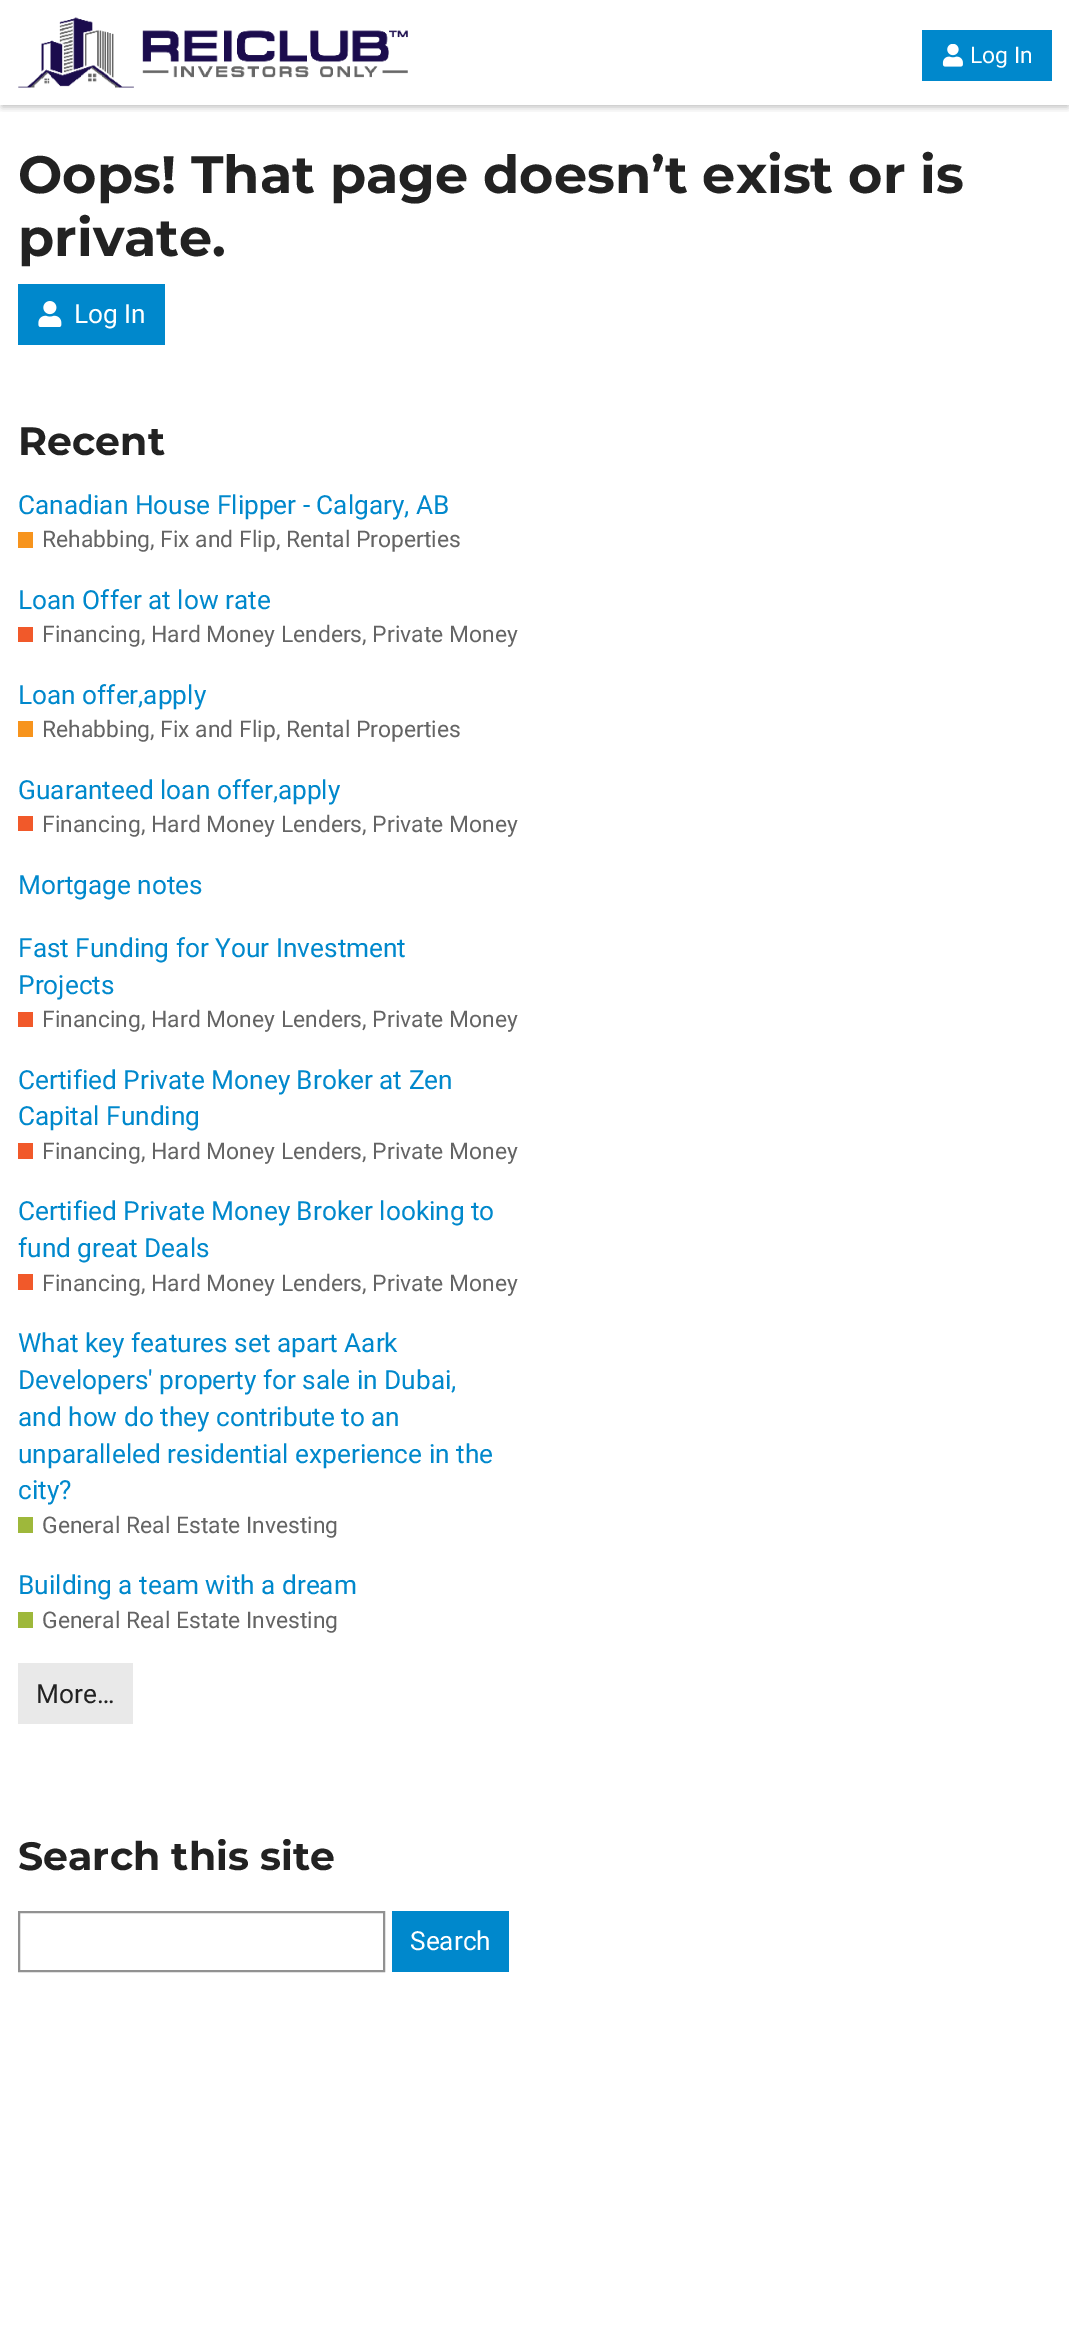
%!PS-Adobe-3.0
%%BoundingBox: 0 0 1069 2326
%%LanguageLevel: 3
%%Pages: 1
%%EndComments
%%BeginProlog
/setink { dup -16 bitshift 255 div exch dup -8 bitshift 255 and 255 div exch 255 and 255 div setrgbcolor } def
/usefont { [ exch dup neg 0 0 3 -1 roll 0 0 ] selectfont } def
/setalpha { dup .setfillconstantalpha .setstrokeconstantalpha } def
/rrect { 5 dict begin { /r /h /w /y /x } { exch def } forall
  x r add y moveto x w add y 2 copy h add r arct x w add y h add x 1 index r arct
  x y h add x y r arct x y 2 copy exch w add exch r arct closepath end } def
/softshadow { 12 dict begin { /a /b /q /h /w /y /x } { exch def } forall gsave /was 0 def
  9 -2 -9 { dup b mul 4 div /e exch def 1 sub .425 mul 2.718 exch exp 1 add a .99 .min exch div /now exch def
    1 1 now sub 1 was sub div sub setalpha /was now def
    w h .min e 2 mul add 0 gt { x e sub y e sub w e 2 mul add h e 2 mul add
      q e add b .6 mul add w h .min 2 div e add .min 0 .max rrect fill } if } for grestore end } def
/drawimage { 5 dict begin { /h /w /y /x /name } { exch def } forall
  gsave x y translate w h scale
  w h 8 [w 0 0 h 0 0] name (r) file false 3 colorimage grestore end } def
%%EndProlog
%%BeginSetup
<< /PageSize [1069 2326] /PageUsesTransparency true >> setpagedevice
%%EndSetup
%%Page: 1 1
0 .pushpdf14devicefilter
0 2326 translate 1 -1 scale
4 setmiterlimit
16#FFFFFF setink
0 0 1069 2326 rectfill
gsave
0 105 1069 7 rectclip
16#000000 setink
2 5 1066 102 0 3.5 0.25 softshadow
grestore
(img1.raw) 18 17 390 71 drawimage
16#0088CC setink
922 30 130 51 rectfill
(img2.raw) 942 44 21 23 drawimage
/Roboto-Regular 22.9 usefont
16#FFFFFF setink
970 63 moveto (Log In) show
/Montserrat-Bold 52.5 usefont
16#222222 setink
18 193 moveto (Oops! That page doesn’t exist or is) show
18 256 moveto (private.) show
16#0088CC setink
18 284 147 61 rectfill
(img3.raw) 38 301 24 26 drawimage
/Roboto-Regular 26.25 usefont
16#FFFFFF setink
74 323 moveto (Log In) show
/Montserrat-Bold 39.5 usefont
16#222222 setink
18 455 moveto (Recent) show
/Roboto-Regular 26.25 usefont
16#0088CC setink
18 514 moveto (Canadian House Flipper - Calgary, AB) show
16#F7941D setink
18 532 15 16 rectfill
/Roboto-Regular 22.9 usefont
16#646464 setink
42 547 moveto (Rehabbing, Fix and Flip, Rental Properties) show
/Roboto-Regular 26.25 usefont
16#0088CC setink
18 609 moveto (Loan Offer at low rate) show
16#F1592A setink
18 627 15 15 rectfill
/Roboto-Regular 22.9 usefont
16#646464 setink
42 642 moveto (Financing, Hard Money Lenders, Private Money) show
/Roboto-Regular 26.25 usefont
16#0088CC setink
18 704 moveto (Loan offer,apply) show
16#F7941D setink
18 721 15 16 rectfill
/Roboto-Regular 22.9 usefont
16#646464 setink
42 737 moveto (Rehabbing, Fix and Flip, Rental Properties) show
/Roboto-Regular 26.25 usefont
16#0088CC setink
18 799 moveto (Guaranteed loan offer,apply) show
16#F1592A setink
18 816 15 15 rectfill
/Roboto-Regular 22.9 usefont
16#646464 setink
42 832 moveto (Financing, Hard Money Lenders, Private Money) show
/Roboto-Regular 26.25 usefont
16#0088CC setink
[
    [(Mortgage notes) 18 894]
    [(Fast Funding for Your Investment) 18 957]
    [(Projects) 18 994]
] { aload pop moveto show } forall
16#F1592A setink
18 1012 15 15 rectfill
/Roboto-Regular 22.9 usefont
16#646464 setink
42 1027 moveto (Financing, Hard Money Lenders, Private Money) show
/Roboto-Regular 26.25 usefont
16#0088CC setink
18 1089 moveto (Certified Private Money Broker at Zen) show
18 1125 moveto (Capital Funding) show
16#F1592A setink
18 1143 15 16 rectfill
/Roboto-Regular 22.9 usefont
16#646464 setink
42 1159 moveto (Financing, Hard Money Lenders, Private Money) show
/Roboto-Regular 26.25 usefont
16#0088CC setink
18 1220 moveto (Certified Private Money Broker looking to) show
18 1257 moveto (fund great Deals) show
16#F1592A setink
18 1274 15 16 rectfill
/Roboto-Regular 22.9 usefont
16#646464 setink
42 1291 moveto (Financing, Hard Money Lenders, Private Money) show
/Roboto-Regular 26.25 usefont
16#0088CC setink
[
    [(What key features set apart Aark) 18 1352]
    [(Developers' property for sale in Dubai,) 18 1389]
    [(and how do they contribute to an) 18 1426]
    [(unparalleled residential experience in the) 18 1463]
    [(city?) 18 1499]
] { aload pop moveto show } forall
16#9EB83B setink
18 1517 15 16 rectfill
/Roboto-Regular 22.9 usefont
16#646464 setink
42 1533 moveto (General Real Estate Investing) show
/Roboto-Regular 26.25 usefont
16#0088CC setink
18 1594 moveto (Building a team with a dream) show
16#9EB83B setink
18 1612 15 16 rectfill
/Roboto-Regular 22.9 usefont
16#646464 setink
42 1628 moveto (General Real Estate Investing) show
16#E9E9E9 setink
18 1663 115 61 rectfill
/Roboto-Regular 26.25 usefont
16#222222 setink
36 1703 moveto (More…) show
/Montserrat-Bold 39.5 usefont
18 1870 moveto (Search this site) show
16#919191 setink
2 setlinewidth
19 1912 365 59 rectstroke
16#0088CC setink
392 1911 117 61 rectfill
/Roboto-Regular 26.25 usefont
16#FFFFFF setink
410 1950 moveto (Search) show
.poppdf14devicefilter showpage
%%EOF
